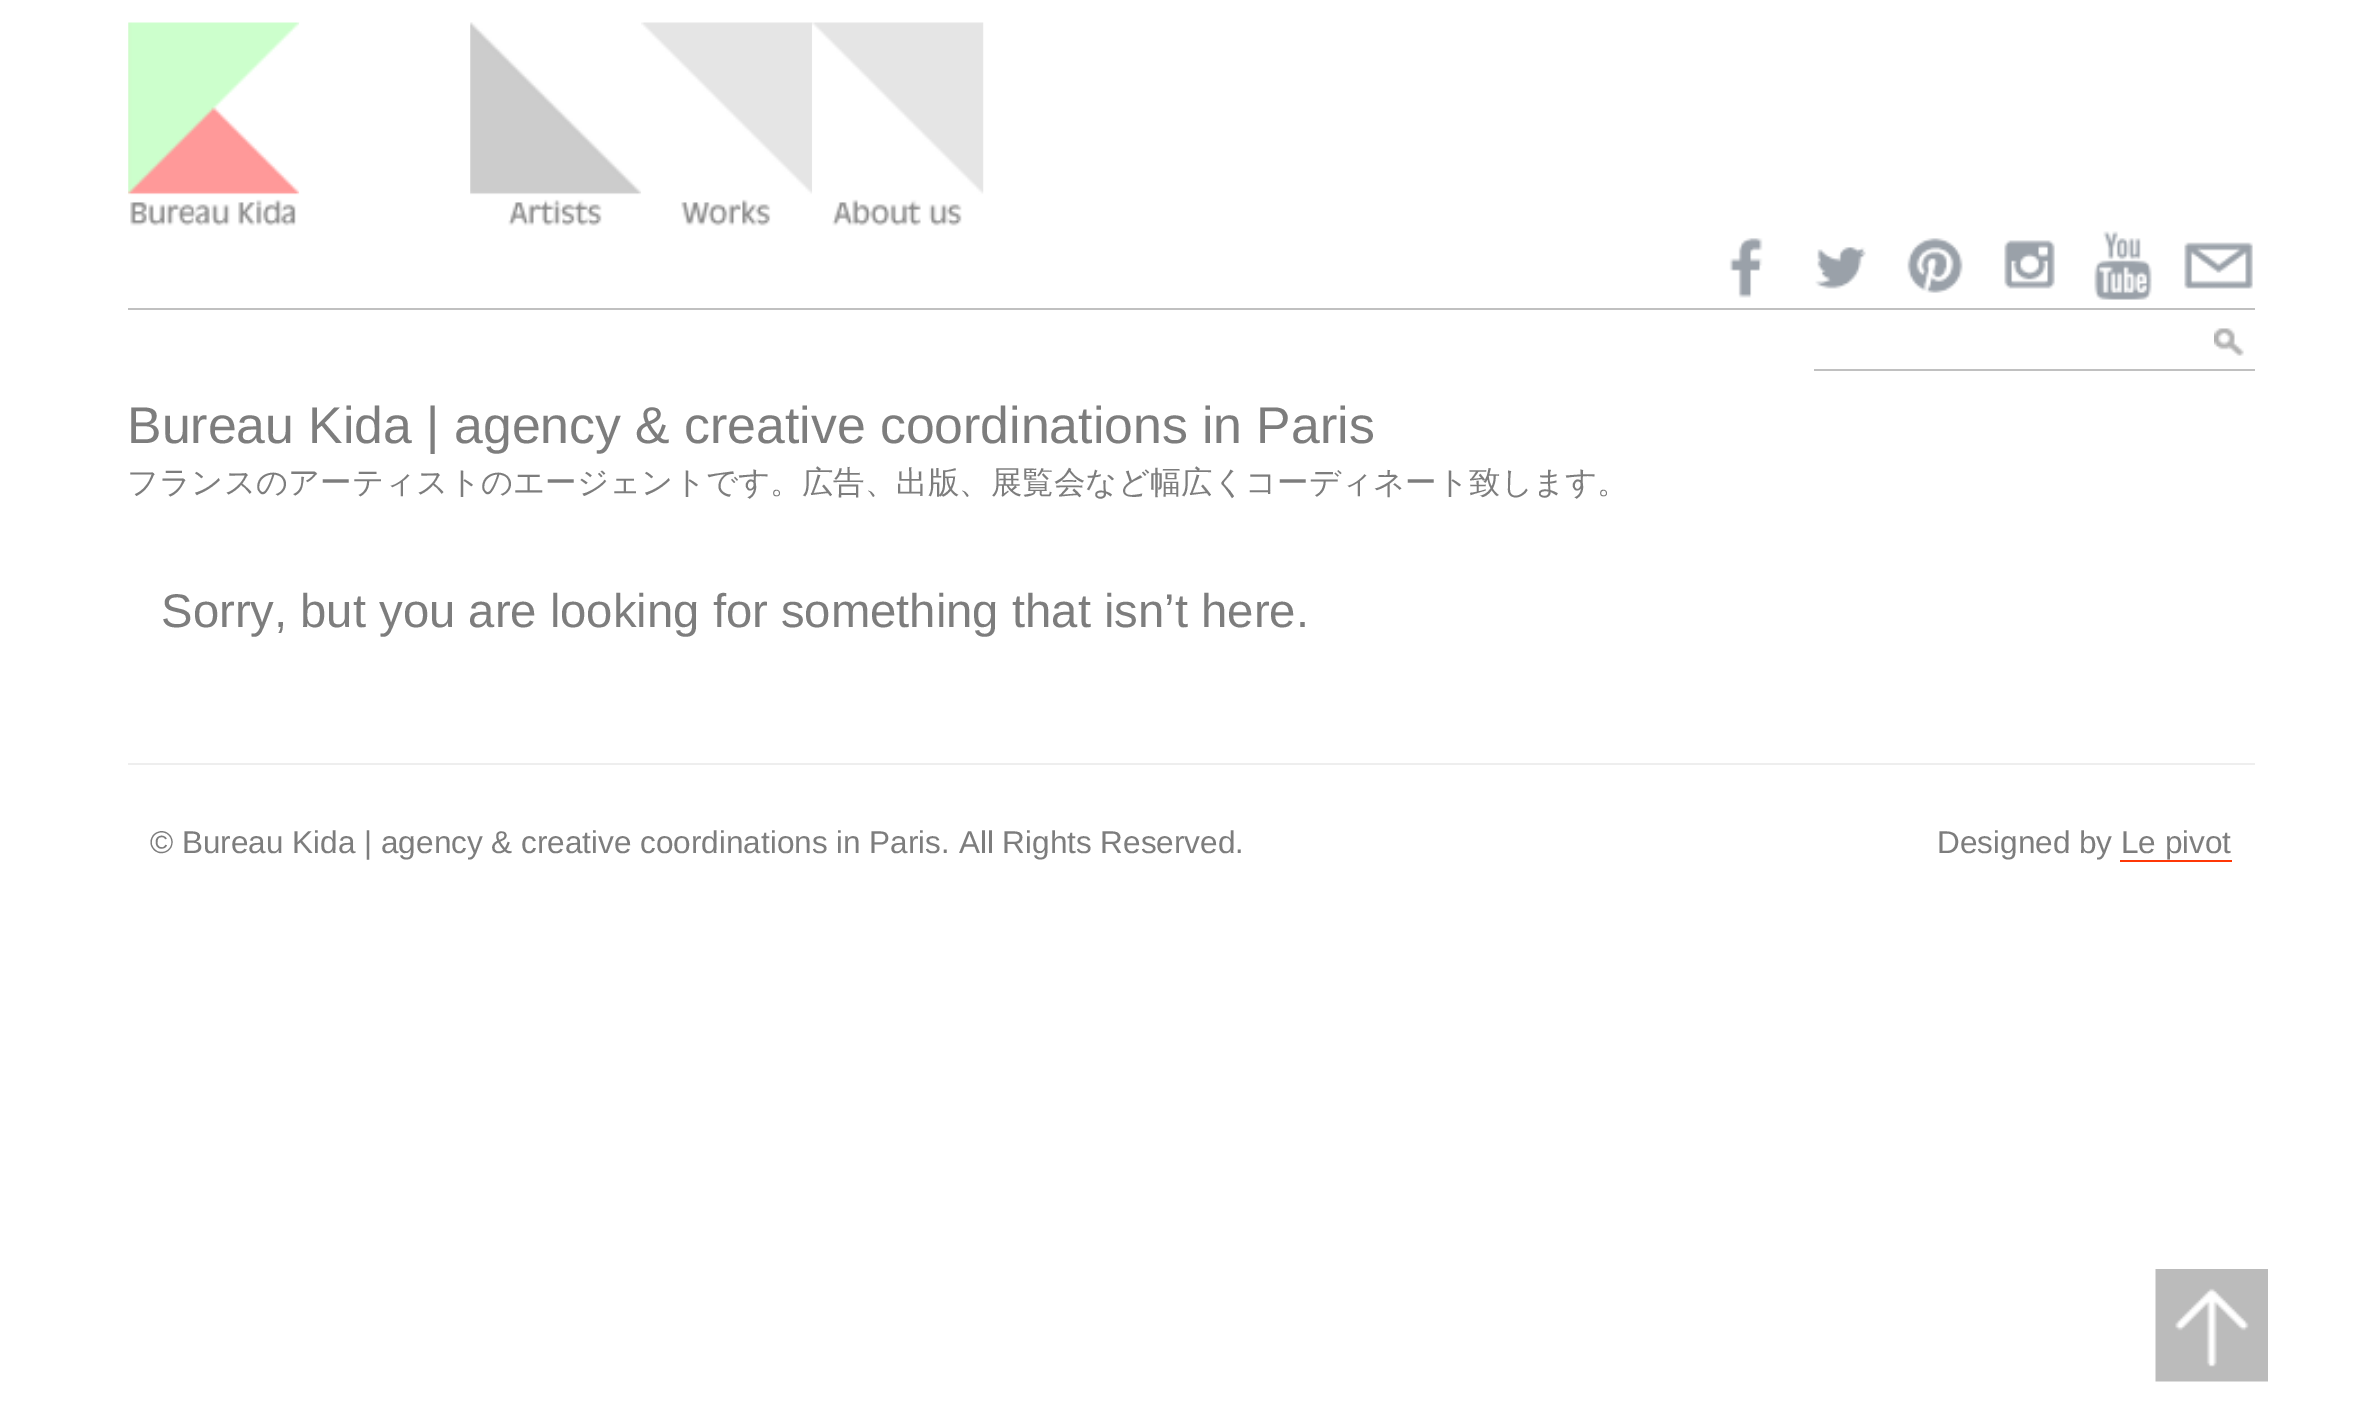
%!PS-Adobe-3.0
%%BoundingBox: 0 0 2379 1415
%%LanguageLevel: 3
%%Pages: 1
%%EndComments
%%BeginProlog
/setink { dup -16 bitshift 255 div exch dup -8 bitshift 255 and 255 div exch 255 and 255 div setrgbcolor } def
/usefont { [ exch dup neg 0 0 3 -1 roll 0 0 ] selectfont } def
/setalpha { dup .setfillconstantalpha .setstrokeconstantalpha } def
/drawimage { 5 dict begin { /h /w /y /x /name } { exch def } forall
  gsave x y translate w h scale
  w h 8 [w 0 0 h 0 0] name (r) file false 3 colorimage grestore end } def
%%EndProlog
%%BeginSetup
<< /PageSize [2379 1415] /PageUsesTransparency true >> setpagedevice
%%EndSetup
%%Page: 1 1
0 .pushpdf14devicefilter
0 1415 translate 1 -1 scale
4 setmiterlimit
16#FFFFFF setink
0 0 2379 1415 rectfill
(img1.raw) 128 22 172 204 drawimage
(img2.raw) 470 22 172 204 drawimage
(img3.raw) 641 22 172 204 drawimage
(img4.raw) 812 22 172 204 drawimage
0.75 setalpha
299 23 1 171 rectfill
1 setalpha
16#C0C0C0 setink
128 308 2127 2 rectfill
(img5.raw) 1729 238 34 60 drawimage
(img6.raw) 1815 247 51 42 drawimage
(img7.raw) 1907 238 56 55 drawimage
(img8.raw) 2004 240 51 49 drawimage
(img9.raw) 2094 231 58 69 drawimage
(img10.raw) 2184 242 69 47 drawimage
(img11.raw) 2214 328 30 28 drawimage
1814 369 441 2 rectfill
/LiberationSans-Regular 51.75 usefont
16#7D7D7D setink
127 443 moveto (Bureau Kida | agency & creative coordinations in Paris) show
/WenQuanYiZenHei-Medium 31.5 usefont
127 493 moveto (フランスのアーティストのエージェントです。広告、出版、展覧会など幅広くコーディネート致します。) show
/LiberationSans-Regular 47.25 usefont
161 627 moveto (Sorry, but you are looking for something that isn’t here.) show
16#EEEEEE setink
128 763 2127 2 rectfill
/LiberationSans-Regular 31.5 usefont
16#7D7D7D setink
150 853 moveto (© Bureau Kida | agency & creative coordinations in Paris. All Rights Reserved.) show
1937 853 moveto (Designed by Le pivot) show
16#FF3706 setink
2120 860 112 2 rectfill
(img12.raw) 2155 1269 113 113 drawimage
.poppdf14devicefilter showpage
%%EOF
